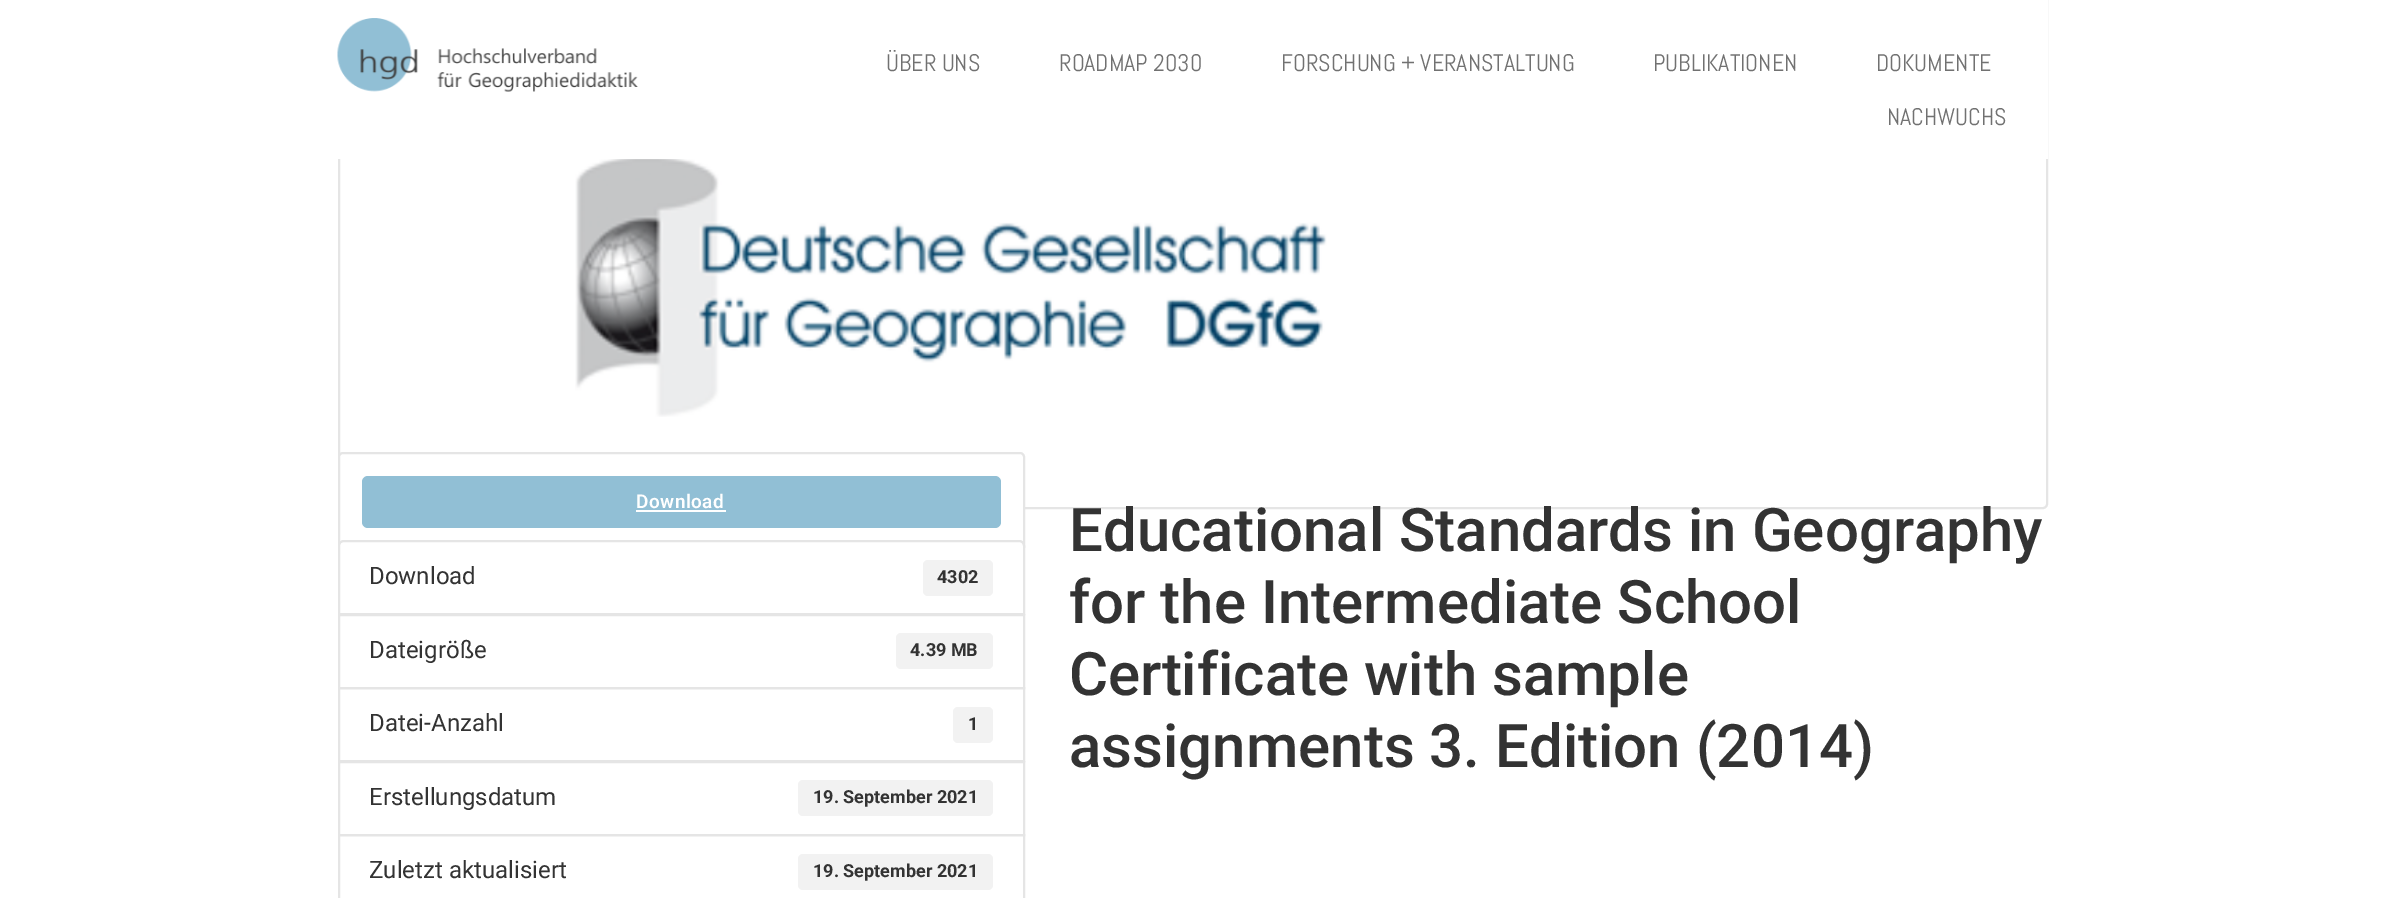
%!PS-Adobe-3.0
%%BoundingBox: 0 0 2384 898
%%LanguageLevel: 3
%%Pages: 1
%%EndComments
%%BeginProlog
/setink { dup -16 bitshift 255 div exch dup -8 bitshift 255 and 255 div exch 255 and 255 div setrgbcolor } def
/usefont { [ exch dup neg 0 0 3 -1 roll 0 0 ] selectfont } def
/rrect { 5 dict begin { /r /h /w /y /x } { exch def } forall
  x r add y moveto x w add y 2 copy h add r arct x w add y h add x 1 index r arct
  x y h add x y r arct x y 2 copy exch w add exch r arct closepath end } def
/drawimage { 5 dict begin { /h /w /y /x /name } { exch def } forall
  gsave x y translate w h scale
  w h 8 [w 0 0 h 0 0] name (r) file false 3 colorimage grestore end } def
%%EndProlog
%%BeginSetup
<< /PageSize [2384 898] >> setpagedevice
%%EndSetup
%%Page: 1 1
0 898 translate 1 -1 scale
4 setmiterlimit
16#FFFFFF setink
0 0 2384 898 rectfill
16#E5E5E5 setink
2 setlinewidth
339 -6 1708 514 4 rrect stroke
16#FFFFFF setink
338 0 1710 159 rectfill
(img1.raw) 337 18 301 74 drawimage
/Abel-Regular 24 usefont
16#717171 setink
[
    [(ÜBER UNS) 886 71]
    [(ROADMAP 2030) 1059 71]
    [(FORSCHUNG + VERANSTALTUNG) 1281 71]
    [(PUBLIKATIONEN) 1653 71]
    [(DOKUMENTE) 1876 71]
    [(NACHWUCHS) 1887 125]
] { aload pop moveto show } forall
(img2.raw) 575 159 752 258 drawimage
16#FFFFFF setink
339 453 685 98 4 rrect gsave fill grestore
16#E5E5E5 setink
stroke
16#91BFD5 setink
362 476 639 52 6 rrect fill
/Roboto-SemiBold 19 usefont
16#FFFFFF setink
636 508 moveto 0.5 0 (Download) ashow
636 510 90 2 rectfill
344 541 moveto 1019 541 lineto 1022 541 1024 543 1024 546 curveto 1024 614 lineto 339 614 lineto 339 546 lineto 339 543 341 541 344 541 curveto closepath gsave fill grestore
16#E5E5E5 setink
stroke
/Roboto-Regular 24 usefont
16#333333 setink
369 584 moveto (Download) show
16#F2F2F2 setink
923 560 70 36 5 rrect fill
/Roboto-Bold 18 usefont
16#333333 setink
937 583 moveto (4302) show
16#E5E5E5 setink
339 615 685 73 rectstroke
/Roboto-Regular 24 usefont
16#333333 setink
369 658 moveto (Dateigröße) show
16#F2F2F2 setink
896 633 97 36 5 rrect fill
/Roboto-Bold 18 usefont
16#333333 setink
910 656 moveto (4.39 MB) show
16#E5E5E5 setink
339 688 685 73 rectstroke
/Roboto-Regular 24 usefont
16#333333 setink
369 731 moveto (Datei-Anzahl) show
16#F2F2F2 setink
953 707 40 36 5 rrect fill
/Roboto-Bold 18 usefont
16#333333 setink
968 730 moveto (1) show
16#E5E5E5 setink
339 762 685 73 rectstroke
/Roboto-Regular 24 usefont
16#333333 setink
369 805 moveto (Erstellungsdatum) show
16#F2F2F2 setink
798 780 195 36 5 rrect fill
/Roboto-Bold 18 usefont
16#333333 setink
813 803 moveto (19. September 2021) show
16#E5E5E5 setink
339 835 685 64 rectstroke
/Roboto-Regular 24 usefont
16#333333 setink
369 878 moveto (Zuletzt aktualisiert) show
16#F2F2F2 setink
798 854 195 36 5 rrect fill
/Roboto-Bold 18 usefont
16#333333 setink
813 877 moveto (19. September 2021) show
/Roboto-Medium 60 usefont
[
    [(Educational Standards in Geography) 1069 551]
    [(for the Intermediate School) 1069 623]
    [(Certificate with sample) 1069 695]
    [(assignments 3. Edition \(2014\)) 1069 767]
] { aload pop moveto show } forall
showpage
%%EOF
